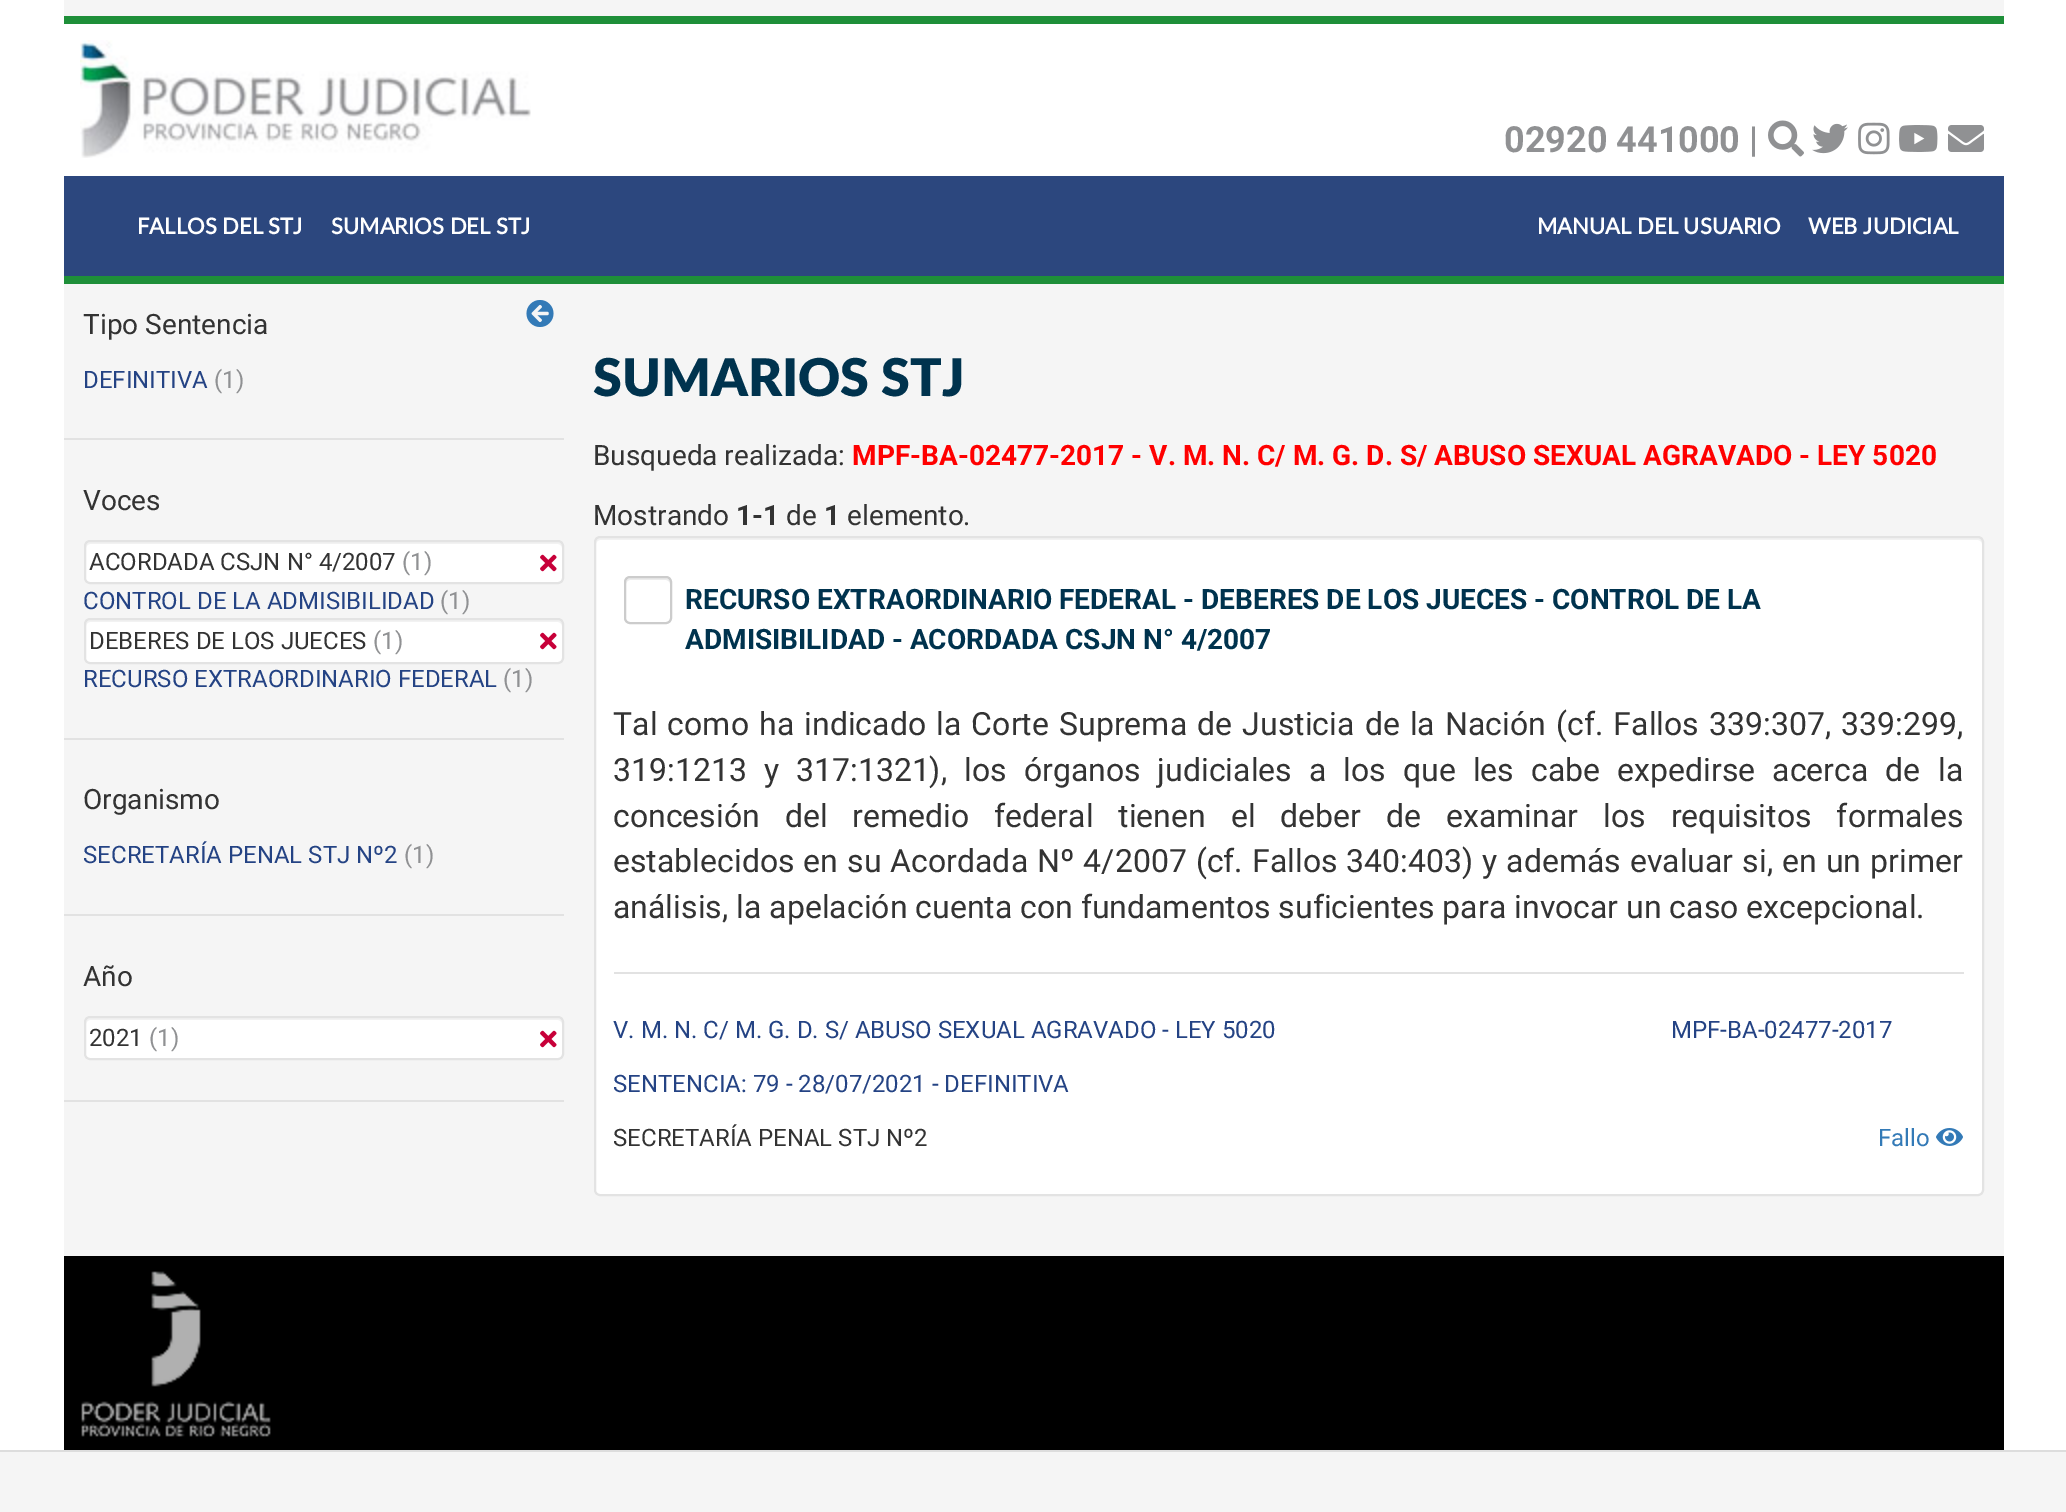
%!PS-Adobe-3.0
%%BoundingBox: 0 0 2066 1512
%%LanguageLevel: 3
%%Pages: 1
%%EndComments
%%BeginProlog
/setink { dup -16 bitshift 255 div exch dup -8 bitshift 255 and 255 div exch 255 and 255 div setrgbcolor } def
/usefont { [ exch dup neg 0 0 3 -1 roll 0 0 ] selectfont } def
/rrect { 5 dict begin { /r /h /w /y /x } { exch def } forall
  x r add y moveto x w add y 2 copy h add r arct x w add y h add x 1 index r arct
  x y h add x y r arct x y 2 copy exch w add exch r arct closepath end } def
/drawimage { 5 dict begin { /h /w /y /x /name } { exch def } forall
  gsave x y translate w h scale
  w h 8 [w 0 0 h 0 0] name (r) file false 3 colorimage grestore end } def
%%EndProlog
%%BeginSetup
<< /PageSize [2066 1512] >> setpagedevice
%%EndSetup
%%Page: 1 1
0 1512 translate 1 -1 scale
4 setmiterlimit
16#FFFFFF setink
0 0 2066 1512 rectfill
[
    [64 0 1940 1256 16#F5F5F5]
    [64 24 1940 152 16#FFFFFF]
    [64 16 1940 8 16#1E8F39]
] { aload pop setink rectfill } forall
(img1.raw) 80 40 451 118 drawimage
/Roboto-Bold 36 usefont
16#909193 setink
1504 152 moveto (02920 441000 |) show
(img2.raw) 1768 120 36 37 drawimage
(img3.raw) 1812 123 36 31 drawimage
(img4.raw) 1858 122 32 33 drawimage
(img5.raw) 1899 125 39 27 drawimage
(img6.raw) 1948 125 36 27 drawimage
16#2C477E setink
64 176 1940 100 rectfill
/Lato-Bold 22 usefont
16#FFFFFF setink
[
    [(FALLOS DEL STJ) 137 234]
    [(SUMARIOS DEL STJ) 331 234]
    [(MANUAL DEL USUARIO) 1537 234]
    [(WEB JUDICIAL) 1808 234]
] { aload pop moveto show } forall
16#1E8F39 setink
64 276 1940 8 rectfill
/Roboto-Regular 28 usefont
16#333333 setink
83 334 moveto (Tipo Sentencia) show
/Roboto-Regular 24 usefont
16#244384 setink
83 388 moveto (DEFINITIVA) show
16#909193 setink
214 388 moveto (\(1\)) show
16#E2E2E2 setink
64 438 500 2 rectfill
/Roboto-Regular 28 usefont
16#333333 setink
83 510 moveto (Voces) show
16#FFFFFF setink
84 540 480 44 6 rrect fill
16#F2F2F2 setink
90 544 moveto 558 544 lineto 560 544 562 546 562 548 curveto 562 546 lineto 562 544 560 542 558 542 curveto 90 542 lineto 88 542 86 544 86 546 curveto 86 548 lineto 86 546 88 544 90 544 curveto closepath fill
16#E3E3E3 setink
2 setlinewidth
85 541 478 42 5 rrect stroke
/Roboto-Regular 24 usefont
16#333333 setink
89 570 moveto (ACORDADA CSJN N° 4/2007) show
16#909193 setink
402 570 moveto (\(1\)) show
(img7.raw) 540 554 17 18 drawimage
16#244384 setink
83 609 moveto (CONTROL DE LA ADMISIBILIDAD) show
16#909193 setink
440 609 moveto (\(1\)) show
16#FFFFFF setink
84 618 480 46 6 rrect fill
16#F2F2F2 setink
90 622 moveto 558 622 lineto 560 622 562 624 562 626 curveto 562 624 lineto 562 622 560 620 558 620 curveto 90 620 lineto 88 620 86 622 86 624 curveto 86 626 lineto 86 624 88 622 90 622 curveto closepath fill
16#E3E3E3 setink
85 619 478 44 5 rrect stroke
16#333333 setink
89 649 moveto (DEBERES DE LOS JUECES) show
16#909193 setink
373 649 moveto (\(1\)) show
(img7.raw) 540 632 17 18 drawimage
16#244384 setink
83 687 moveto (RECURSO EXTRAORDINARIO FEDERAL) show
16#909193 setink
503 687 moveto (\(1\)) show
16#E2E2E2 setink
64 738 500 2 rectfill
/Roboto-Regular 28 usefont
16#333333 setink
83 809 moveto (Organismo) show
/Roboto-Regular 24 usefont
16#244384 setink
83 863 moveto (SECRETARÍA PENAL STJ Nº2) show
16#909193 setink
404 863 moveto (\(1\)) show
16#E2E2E2 setink
64 914 500 2 rectfill
/Roboto-Regular 28 usefont
16#333333 setink
83 986 moveto (Año) show
16#FFFFFF setink
84 1016 480 44 6 rrect fill
16#F2F2F2 setink
90 1020 moveto 558 1020 lineto 560 1020 562 1022 562 1024 curveto 562 1022 lineto 562 1020 560 1018 558 1018 curveto 90 1018 lineto 88 1018 86 1020 86 1022 curveto 86 1024 lineto 86 1022 88 1020 90 1020 curveto closepath fill
16#E3E3E3 setink
85 1017 478 42 5 rrect stroke
/Roboto-Regular 24 usefont
16#333333 setink
89 1046 moveto (2021) show
16#909193 setink
149 1046 moveto (\(1\)) show
(img7.raw) 540 1030 17 18 drawimage
16#E2E2E2 setink
64 1100 500 2 rectfill
(img8.raw) 526 300 28 27 drawimage
/Lato-Black 52 usefont
16#00334E setink
593 396 moveto (SUMARIOS STJ) show
/Roboto-Regular 28 usefont
16#333333 setink
593 465 moveto (Busqueda realizada:) show
/Roboto-Bold 28 usefont
16#FF0000 setink
852 465 moveto (MPF-BA-02477-2017 - V. M. N. C/ M. G. D. S/ ABUSO SEXUAL AGRAVADO - LEY 5020) show
/Roboto-Regular 28 usefont
16#333333 setink
593 525 moveto (Mostrando) show
/Roboto-Bold 28 usefont
736 525 moveto (1-1) show
/Roboto-Regular 28 usefont
786 525 moveto (de) show
/Roboto-Bold 28 usefont
824 525 moveto (1) show
/Roboto-Regular 28 usefont
847 525 moveto (elemento.) show
16#FFFFFF setink
594 536 1390 660 6 rrect fill
16#F2F2F2 setink
600 540 moveto 1978 540 lineto 1980 540 1982 542 1982 544 curveto 1982 541 1982 538 1978 538 curveto 600 538 lineto 596 538 596 541 596 544 curveto 596 542 598 540 600 540 curveto closepath fill
16#E3E3E3 setink
595 537 1388 658 5 rrect stroke
16#ECECEC setink
630 580 moveto 666 580 lineto 668 580 670 582 670 584 curveto 670 577 666 578 660 578 curveto 636 578 lineto 630 578 626 577 626 584 curveto 626 582 628 580 630 580 curveto closepath fill
16#CCCCCC setink
625 577 46 46 5 rrect stroke
/Roboto-Bold 28 usefont
16#00334E setink
685 609 moveto (RECURSO EXTRAORDINARIO FEDERAL - DEBERES DE LOS JUECES - CONTROL DE LA) show
685 649 moveto (ADMISIBILIDAD - ACORDADA CSJN N° 4/2007) show
/Roboto-Regular 32 usefont
16#333333 setink
613 735 moveto 2.25 0 32 (Tal como ha indicado la Corte Suprema de Justicia de la Nación \(cf. Fallos 339:307,) widthshow
1841 735 moveto (339:299,) show
613 781 moveto 9.1 0 32 (319:1213 y 317:1321\), los órganos judiciales a los que les cabe expedirse acerca de) widthshow
1938 781 moveto (la) show
613 827 moveto 17 0 32 (concesión del remedio federal tienen el deber de examinar los requisitos formales) widthshow
613 872 moveto 1.1 0 32 (establecidos en su Acordada Nº 4/2007 \(cf. Fallos 340:403\) y además evaluar si, en un primer) widthshow
613 918 moveto (análisis, la apelación cuenta con fundamentos suficientes para invocar un caso excepcional.) show
16#E2E2E2 setink
614 972 1350 2 rectfill
/Roboto-Regular 24 usefont
16#244384 setink
[
    [(V. M. N. C/ M. G. D. S/ ABUSO SEXUAL AGRAVADO - LEY 5020) 613 1038]
    [(MPF-BA-02477-2017) 1671 1038]
    [(SENTENCIA: 79 - 28/07/2021 - DEFINITIVA) 613 1092]
] { aload pop moveto show } forall
16#333333 setink
613 1146 moveto (SECRETARÍA PENAL STJ Nº2) show
16#337AB7 setink
1878 1146 moveto (Fallo) show
(img9.raw) 1936 1128 27 18 drawimage
16#000000 setink
64 1256 1940 194 rectfill
(img10.raw) 81 1271 190 166 drawimage
16#F5F5F5 setink
0 1452 2066 60 rectfill
16#DDDDDD setink
0 1450 2066 2 rectfill
showpage
%%EOF
